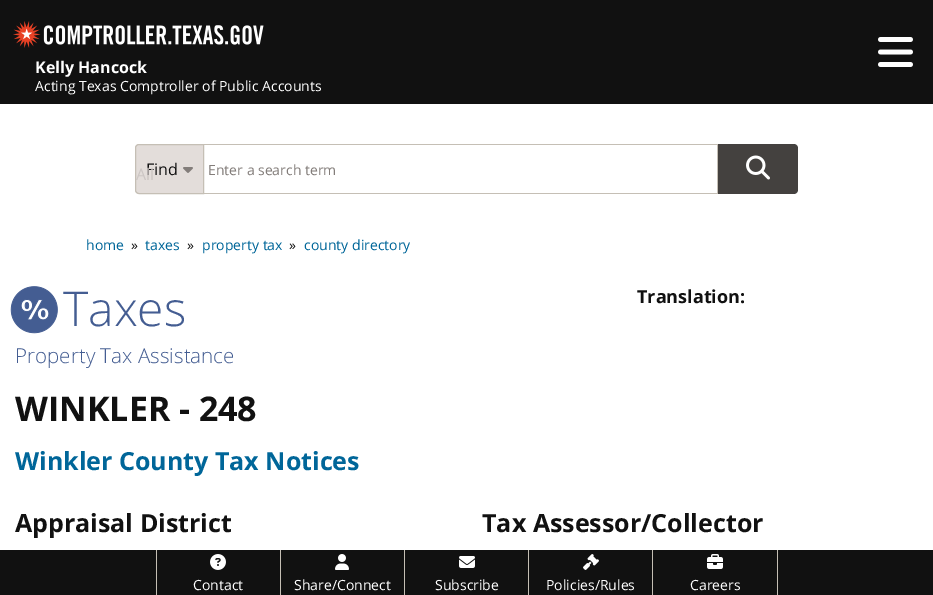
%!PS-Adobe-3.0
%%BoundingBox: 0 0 933 595
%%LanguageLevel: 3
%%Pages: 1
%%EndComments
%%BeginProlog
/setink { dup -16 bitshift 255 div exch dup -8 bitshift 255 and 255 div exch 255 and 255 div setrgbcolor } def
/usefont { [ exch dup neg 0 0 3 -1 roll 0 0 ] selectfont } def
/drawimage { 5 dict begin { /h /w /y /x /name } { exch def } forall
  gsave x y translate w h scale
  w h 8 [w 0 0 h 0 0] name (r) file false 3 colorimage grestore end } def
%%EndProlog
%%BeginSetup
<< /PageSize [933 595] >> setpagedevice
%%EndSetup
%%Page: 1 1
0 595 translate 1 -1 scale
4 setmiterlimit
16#FFFFFF setink
0 0 933 595 rectfill
16#111111 setink
0 0 933 104 rectfill
(img1.raw) 878 37 35 30 drawimage
(img2.raw) 13 21 251 27 drawimage
/OpenSans-Bold 16 usefont
16#FFFFFF setink
35 73 moveto (Kelly Hancock) show
/OpenSans-Regular 14 usefont
35 91 moveto (Acting Texas Comptroller of Public Accounts) show
16#E3DDDA setink
139 144.5 moveto 203.5 144.5 lineto 203.5 193.5 lineto 139 193.5 lineto 137 193.5 135.5 192 135.5 190 curveto 135.5 148 lineto 135.5 146 137 144.5 139 144.5 curveto closepath gsave fill grestore
16#C5BFB5 setink
stroke
/OpenSans-Regular 16 usefont
16#111111 setink
146 175 moveto (Find) show
16#CCC6C4 setink
136 180 moveto (All) show
(img3.raw) 183 167 10 6 drawimage
[
    [204 144 514 1 16#C5BFB5]
    [717 144 1 50 16#C5BFB5]
    [204 193 514 1 16#C5BFB5]
] { aload pop setink rectfill } forall
/OpenSans-Regular 14 usefont
16#837D7A setink
208 175 moveto (Enter a search term) show
16#44413F setink
718 144 moveto 794 144 lineto 796 144 798 146 798 148 curveto 798 190 lineto 798 192 796 194 794 194 curveto 718 194 lineto closepath fill
(img4.raw) 746 155 24 25 drawimage
16#006699 setink
86 250 moveto (home) show
16#111111 setink
131 250 moveto (») show
16#006699 setink
145 250 moveto (taxes) show
16#111111 setink
187 250 moveto (») show
16#006699 setink
202 250 moveto (property tax) show
16#111111 setink
289 250 moveto (») show
16#006699 setink
304 250 moveto (county directory) show
(img5.raw) 10 286 48 48 drawimage
/OpenSans-Light 48 usefont
16#445D92 setink
63 326 moveto (Taxes) show
/OpenSans-Light 20.6 usefont
15 363 moveto (Property Tax Assistance) show
/OpenSans-Bold 34 usefont
16#111111 setink
15 421 moveto (WINKLER - 248) show
/OpenSans-Bold 25 usefont
16#006699 setink
15 470 moveto (Winkler County Tax Notices) show
/OpenSans-Bold 18 usefont
16#111111 setink
637 303 moveto (Translation:) show
/OpenSans-Bold 25 usefont
15 532 moveto (Appraisal District) show
482 532 moveto (Tax Assessor/Collector) show
[
    [0 550 933 45 16#111111]
    [280 550 1 45 16#C5BFB5]
    [156 550 1 45 16#C5BFB5]
] { aload pop setink rectfill } forall
(img6.raw) 210 554 16 16 drawimage
/OpenSans-Regular 14 usefont
16#FFFFFF setink
193 590 moveto (Contact) show
16#C5BFB5 setink
404 550 1 45 rectfill
(img7.raw) 335 554 14 16 drawimage
16#FFFFFF setink
294 590 moveto (Share/Connect) show
16#C5BFB5 setink
528 550 1 45 rectfill
(img8.raw) 459 556 16 12 drawimage
16#FFFFFF setink
435 590 moveto (Subscribe) show
16#C5BFB5 setink
652 550 1 45 rectfill
(img9.raw) 583 554 16 16 drawimage
16#FFFFFF setink
546 590 moveto (Policies/Rules) show
16#C5BFB5 setink
777 550 1 45 rectfill
(img10.raw) 707 554 16 15 drawimage
16#FFFFFF setink
690 590 moveto (Careers) show
showpage
%%EOF
